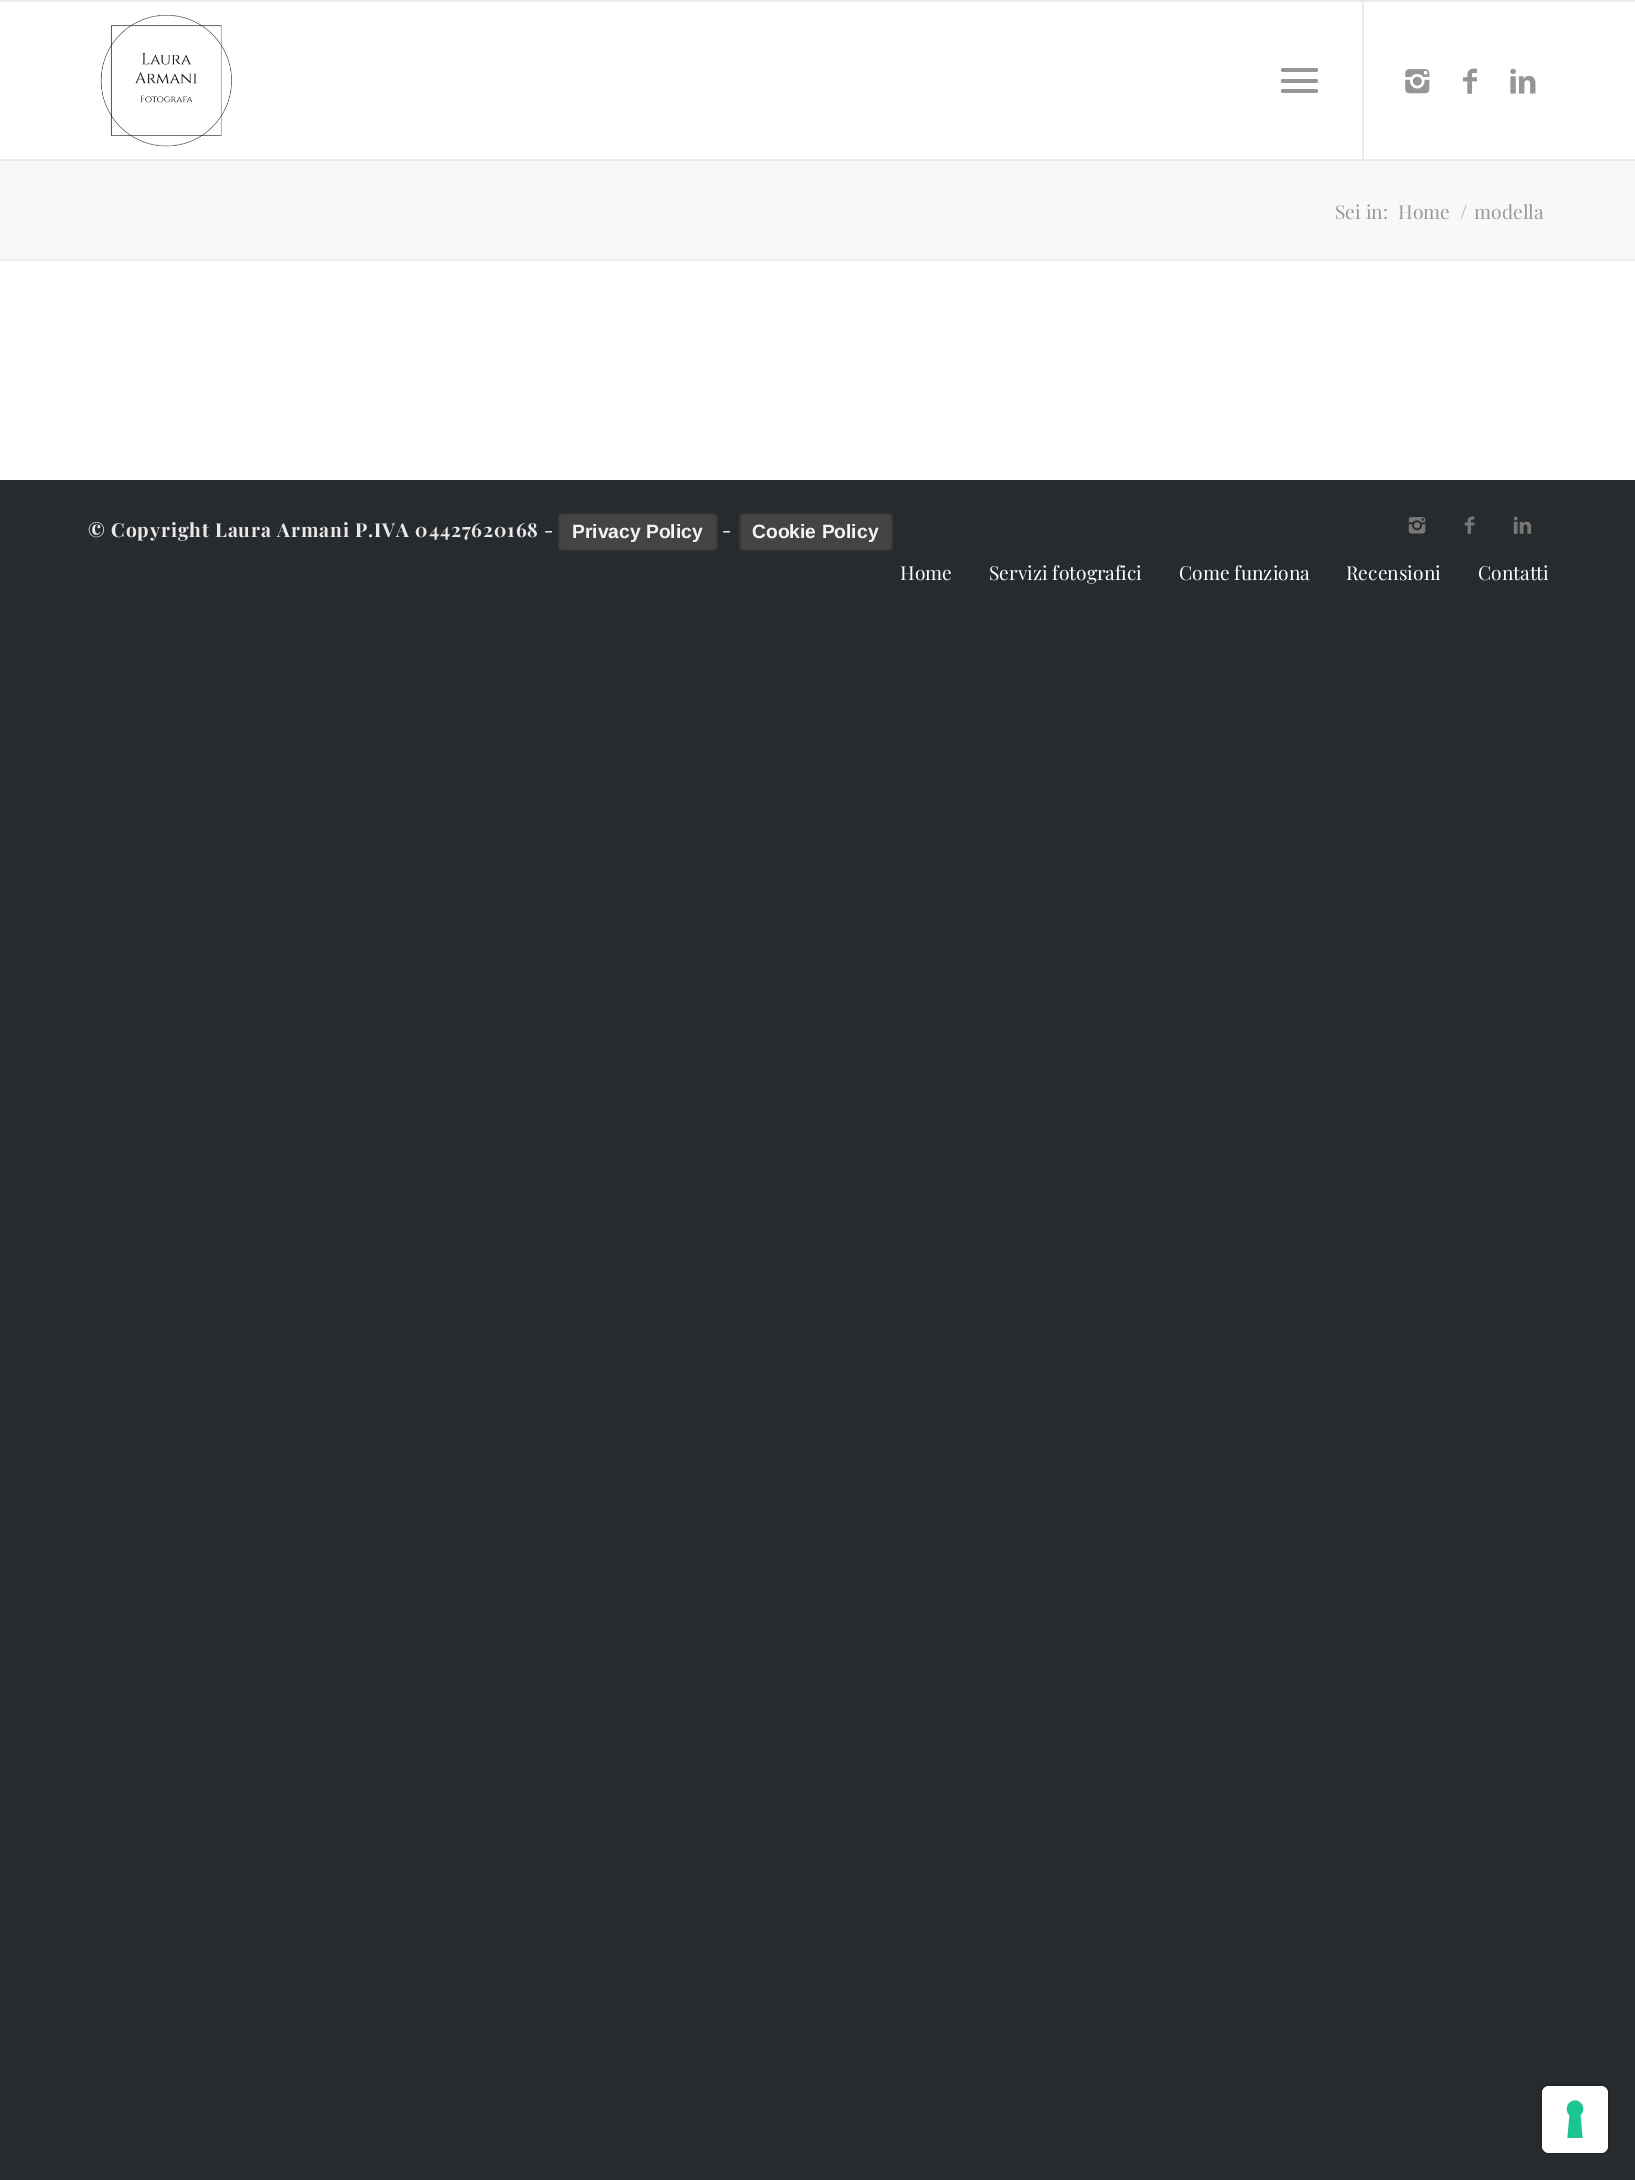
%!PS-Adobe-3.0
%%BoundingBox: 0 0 1635 2180
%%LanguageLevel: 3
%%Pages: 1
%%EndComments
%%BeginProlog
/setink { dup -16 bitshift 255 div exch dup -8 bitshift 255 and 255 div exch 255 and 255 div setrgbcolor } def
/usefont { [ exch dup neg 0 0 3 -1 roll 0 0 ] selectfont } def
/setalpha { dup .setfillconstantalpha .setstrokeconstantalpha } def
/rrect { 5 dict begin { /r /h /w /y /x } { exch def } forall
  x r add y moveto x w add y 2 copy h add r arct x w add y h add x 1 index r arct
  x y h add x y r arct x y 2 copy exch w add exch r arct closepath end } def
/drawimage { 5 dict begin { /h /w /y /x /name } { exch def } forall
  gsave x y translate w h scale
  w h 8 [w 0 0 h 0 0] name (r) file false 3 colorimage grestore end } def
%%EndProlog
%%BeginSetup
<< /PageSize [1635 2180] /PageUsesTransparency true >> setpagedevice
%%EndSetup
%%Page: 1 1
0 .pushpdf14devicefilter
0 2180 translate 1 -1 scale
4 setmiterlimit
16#282B2E setink
0 0 1635 2180 rectfill
[
    [0 0 1635 2 16#EBEBEB]
    [0 159 1635 2 16#EBEBEB]
    [0 2 1635 157 16#FFFFFF]
] { aload pop setink rectfill } forall
(img1.raw) 100 14 132 133 drawimage
16#EBEBEB setink
1362 2 2 157 rectfill
16#969696 setink
1281 79 37 4 2 rrect fill
1281 68 37 4 2 rrect fill
1281 89 37 4 2 rrect fill
(img2.raw) 1405 69 25 25 drawimage
(img3.raw) 1463 68 14 26 drawimage
(img4.raw) 1510 68 26 26 drawimage
16#FFFFFF setink
0 261 1635 219 rectfill
16#F8F8F8 setink
0 161 1635 98 rectfill
/PlayfairDisplay-Regular 19.25 usefont
16#999999 setink
[
    [(Sei in:) 1335 219]
    [(Home) 1398 219]
    [(/) 1460 219]
    [(modella) 1474 219]
] { aload pop moveto show } forall
16#EBEBEB setink
0 259 1635 2 rectfill
/PlayfairDisplay-Bold 19.25 usefont
16#E8E8E8 setink
88 537 moveto 0.9 0 (© Copyright Laura Armani P.IVA 04427620168 -) ashow
16#444444 setink
558 513 160 38 5 rrect fill
0.15 setalpha
16#000000 setink
2 setlinewidth
559 514 158 36 4 rrect stroke
/LiberationSans-Bold 19.25 usefont
1 setalpha
16#F4F4F4 setink
572 538 moveto (Privacy Policy) show
/PlayfairDisplay-Bold 19.25 usefont
16#E8E8E8 setink
722 537 moveto 0.9 0 (-) ashow
16#444444 setink
739 513 154 38 5 rrect fill
0.15 setalpha
16#000000 setink
740 514 152 36 4 rrect stroke
/LiberationSans-Bold 19.25 usefont
1 setalpha
16#F4F4F4 setink
752 538 moveto (Cookie Policy) show
(img5.raw) 1408 517 18 17 drawimage
(img6.raw) 1464 516 11 18 drawimage
(img7.raw) 1513 516 19 18 drawimage
/PlayfairDisplay-Regular 19.25 usefont
16#FFFFFF setink
[
    [(Home) 900 580]
    [(Servizi fotografici) 989 580]
    [(Come funziona) 1179 580]
    [(Recensioni) 1346 580]
    [(Contatti) 1478 580]
] { aload pop moveto show } forall
16#222527 setink
1541 2085 68 68 8 rrect stroke
16#FFFFFF setink
1542 2086 66 67 7 rrect fill
16#1CC691 setink
1575 2100.5 moveto 1582.5 2100.5 1586 2110 1580.5 2115 curveto 1582.5 2138 lineto 1567.5 2138 lineto 1569.5 2115 lineto 1564 2110 1567.5 2100.5 1575 2100.5 curveto closepath eofill
.poppdf14devicefilter showpage
%%EOF
